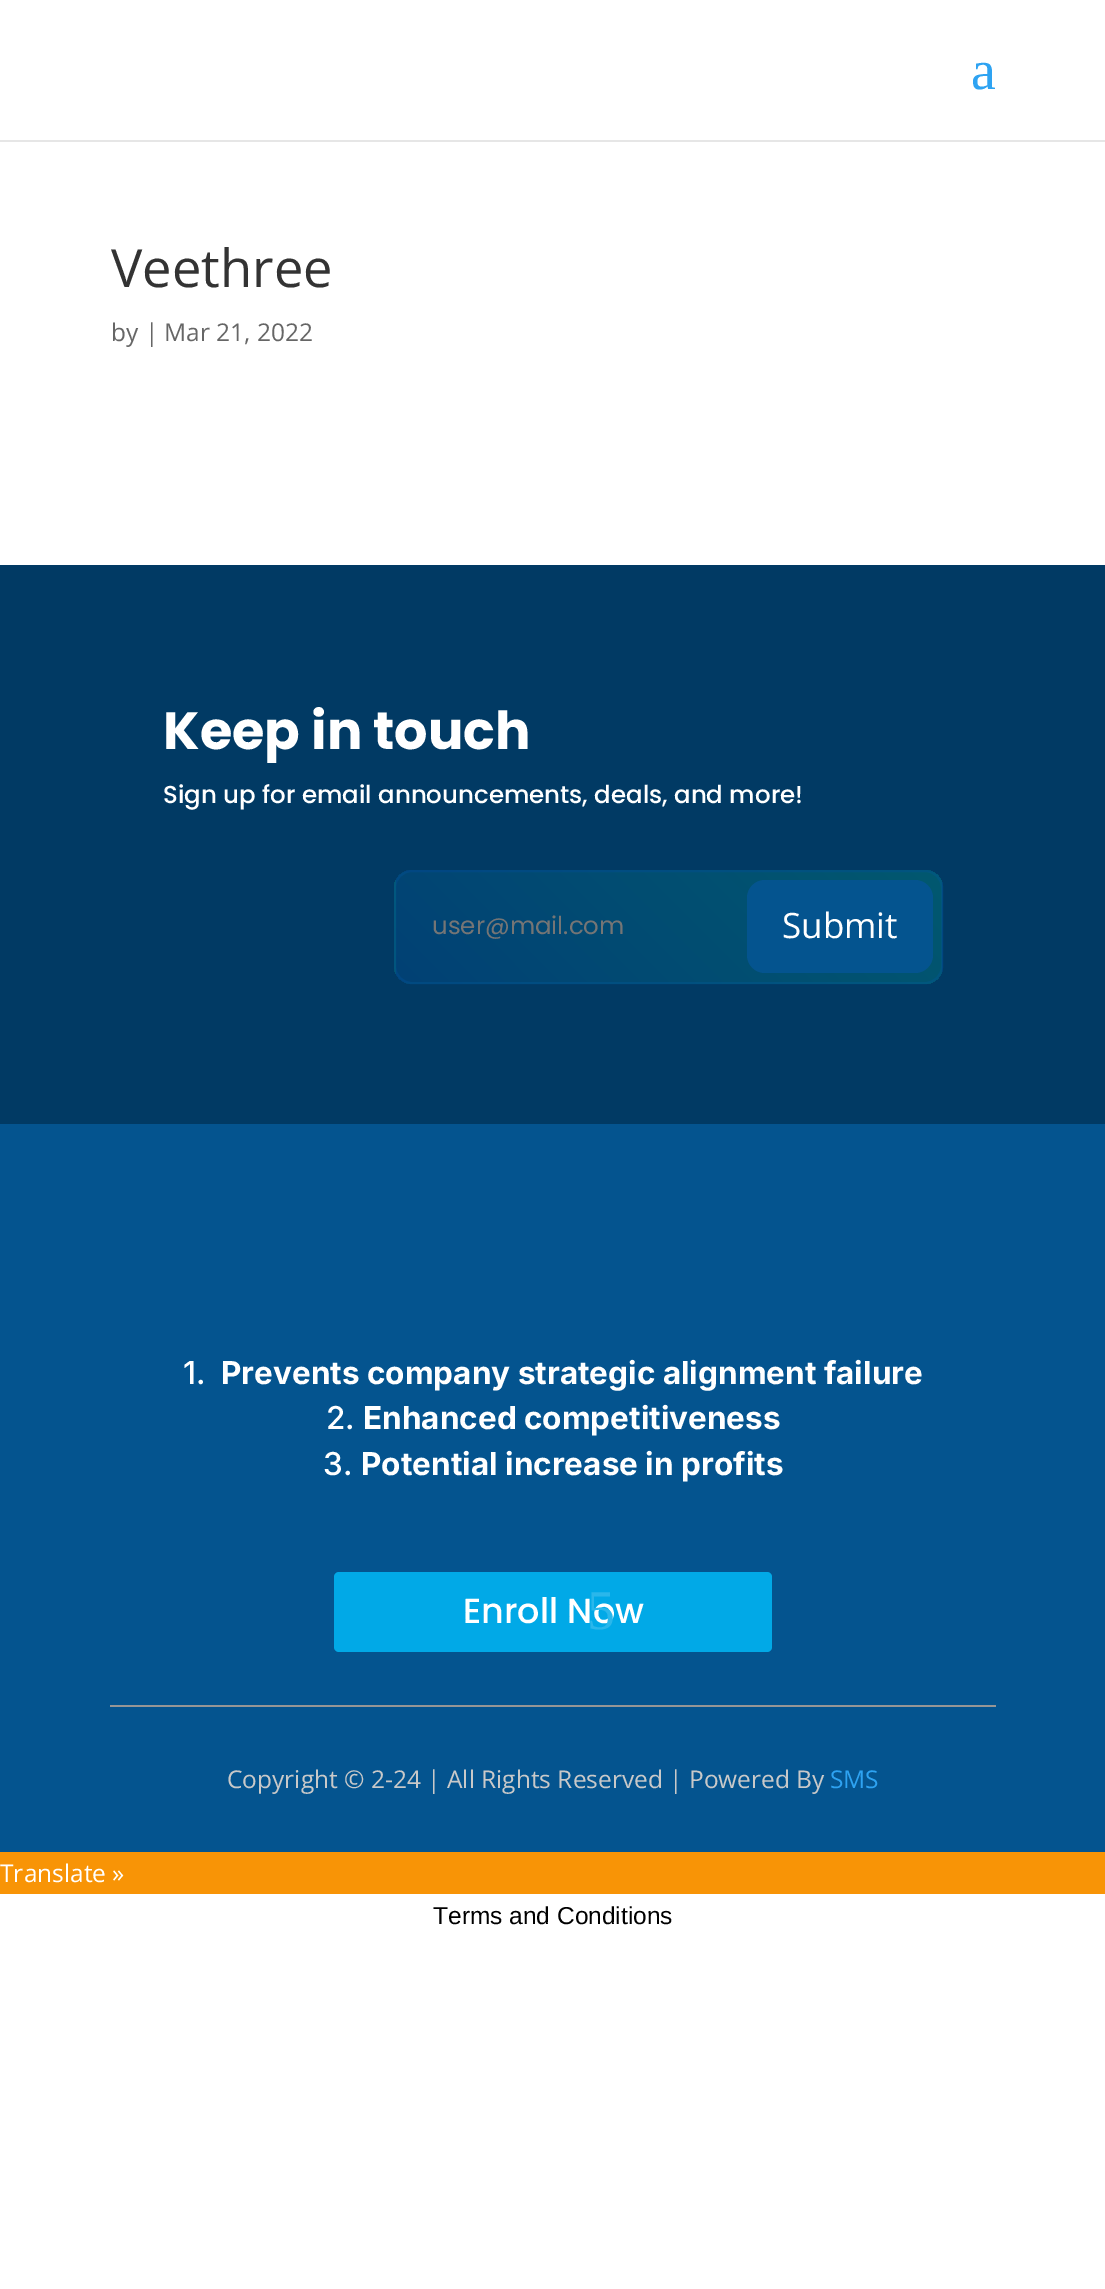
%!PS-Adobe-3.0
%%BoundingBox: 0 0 1105 2289
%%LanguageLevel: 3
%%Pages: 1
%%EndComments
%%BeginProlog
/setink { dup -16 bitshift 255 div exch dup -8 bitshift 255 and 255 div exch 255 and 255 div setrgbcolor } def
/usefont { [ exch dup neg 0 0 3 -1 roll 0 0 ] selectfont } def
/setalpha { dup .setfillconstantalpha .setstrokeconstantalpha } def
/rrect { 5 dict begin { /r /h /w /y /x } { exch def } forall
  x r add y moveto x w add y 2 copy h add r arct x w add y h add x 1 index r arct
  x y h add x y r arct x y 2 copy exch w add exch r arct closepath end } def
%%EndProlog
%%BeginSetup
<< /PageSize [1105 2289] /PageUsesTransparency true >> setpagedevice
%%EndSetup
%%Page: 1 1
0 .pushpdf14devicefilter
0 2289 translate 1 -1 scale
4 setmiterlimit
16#FFFFFF setink
0 0 1105 2289 rectfill
16#E6E6E6 setink
0 140 1105 2 rectfill
/LiberationSerif-Regular 56 usefont
16#2EA3F2 setink
971 89 moveto (a) show
/OpenSans-Regular 52.5 usefont
16#333333 setink
111 287 moveto (Veethree) show
/OpenSans-Regular 24.5 usefont
16#666666 setink
111 341 moveto (by | Mar 21, 2022) show
16#013A64 setink
0 565 1105 559 rectfill
/Poppins-Bold 52.5 usefont
16#FFFFFF setink
163 749 moveto (Keep in touch) show
/Poppins-Medium 24.5 usefont
163 803 moveto (Sign up for email announcements, deals, and more!) show
gsave
394 870 549 114 18 rrect clip newpath
gsave 396 870 moveto 933 870 lineto 933 872 lineto 396 872 lineto closepath clip newpath
<< /ShadingType 2 /ColorSpace /DeviceRGB /Coords [504 980 833 652] /Extend [true true] /Function << /FunctionType 2 /Domain [0 1] /C0 [0.004 0.255 0.459] /C1 [0.004 0.345 0.435] /N 1 >> >> shfill grestore
gsave 394 872 moveto 396 872 lineto 396 982 lineto 394 982 lineto closepath clip newpath
<< /ShadingType 2 /ColorSpace /DeviceRGB /Coords [-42 1091 287 763] /Extend [true true] /Function << /FunctionType 2 /Domain [0 1] /C0 [0.004 0.255 0.459] /C1 [0.004 0.345 0.435] /N 1 >> >> shfill grestore
gsave 396 872 moveto 942 872 lineto 942 982 lineto 396 982 lineto closepath clip newpath
<< /ShadingType 2 /ColorSpace /DeviceRGB /Coords [504 1091 833 763] /Extend [true true] /Function << /FunctionType 2 /Domain [0 1] /C0 [0.004 0.255 0.459] /C1 [0.004 0.345 0.435] /N 1 >> >> shfill grestore
gsave 942 882 moveto 943 882 lineto 943 972 lineto 942 972 lineto closepath clip newpath
<< /ShadingType 2 /ColorSpace /DeviceRGB /Coords [1050 1091 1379 763] /Extend [true true] /Function << /FunctionType 2 /Domain [0 1] /C0 [0.004 0.255 0.459] /C1 [0.004 0.345 0.435] /N 1 >> >> shfill grestore
gsave 396 982 moveto 933 982 lineto 933 984 lineto 396 984 lineto closepath clip newpath
<< /ShadingType 2 /ColorSpace /DeviceRGB /Coords [504 1201 833 873] /Extend [true true] /Function << /FunctionType 2 /Domain [0 1] /C0 [0.004 0.255 0.459] /C1 [0.004 0.345 0.435] /N 1 >> >> shfill grestore
grestore
0.27 setalpha
16#0056A8 setink
2 setlinewidth
395 871 547 112 17 rrect stroke
/Poppins-Regular 24.5 usefont
1 setalpha
16#757575 setink
432 934 moveto (user@mail.com) show
16#04548F setink
747 880 186 93 18 rrect fill
/OpenSans-Regular 35 usefont
16#FFFFFF setink
782 938 moveto (Submit) show
16#04548F setink
0 1124 1105 728 rectfill
/Inter-Medium 31.5 usefont
16#FFFFFF setink
183 1384 moveto (1.) show
/Inter-Bold 31.5 usefont
221 1384 moveto (Prevents company strategic alignment failure) show
/Inter-Medium 31.5 usefont
326 1429 moveto (2.) show
/Inter-Bold 31.5 usefont
363 1429 moveto (Enhanced competitiveness) show
/Inter-Medium 31.5 usefont
323 1475 moveto (3.) show
/Inter-Bold 31.5 usefont
361 1475 moveto (Potential increase in profits) show
16#01A9E7 setink
334 1572 438 80 5 rrect fill
/Poppins-Medium 35 usefont
16#FFFFFF setink
463 1623 moveto (Enroll Now) show
/LiberationSerif-Regular 56 usefont
16#2AB7EB setink
587 1629 moveto (5) show
16#969696 setink
110 1705 886 2 rectfill
/OpenSans-Regular 24.5 usefont
16#C9C9C9 setink
227 1788 moveto (Copyright © 2-24 | All Rights Reserved | Powered By) show
16#2EA3F2 setink
830 1788 moveto (SMS) show
16#F89406 setink
0 1852 1105 42 rectfill
16#FFFFFF setink
0 1882 moveto (Translate ») show
/LiberationSans-Regular 24.5 usefont
16#000000 setink
433 1924 moveto (Terms and Conditions) show
.poppdf14devicefilter showpage
%%EOF
